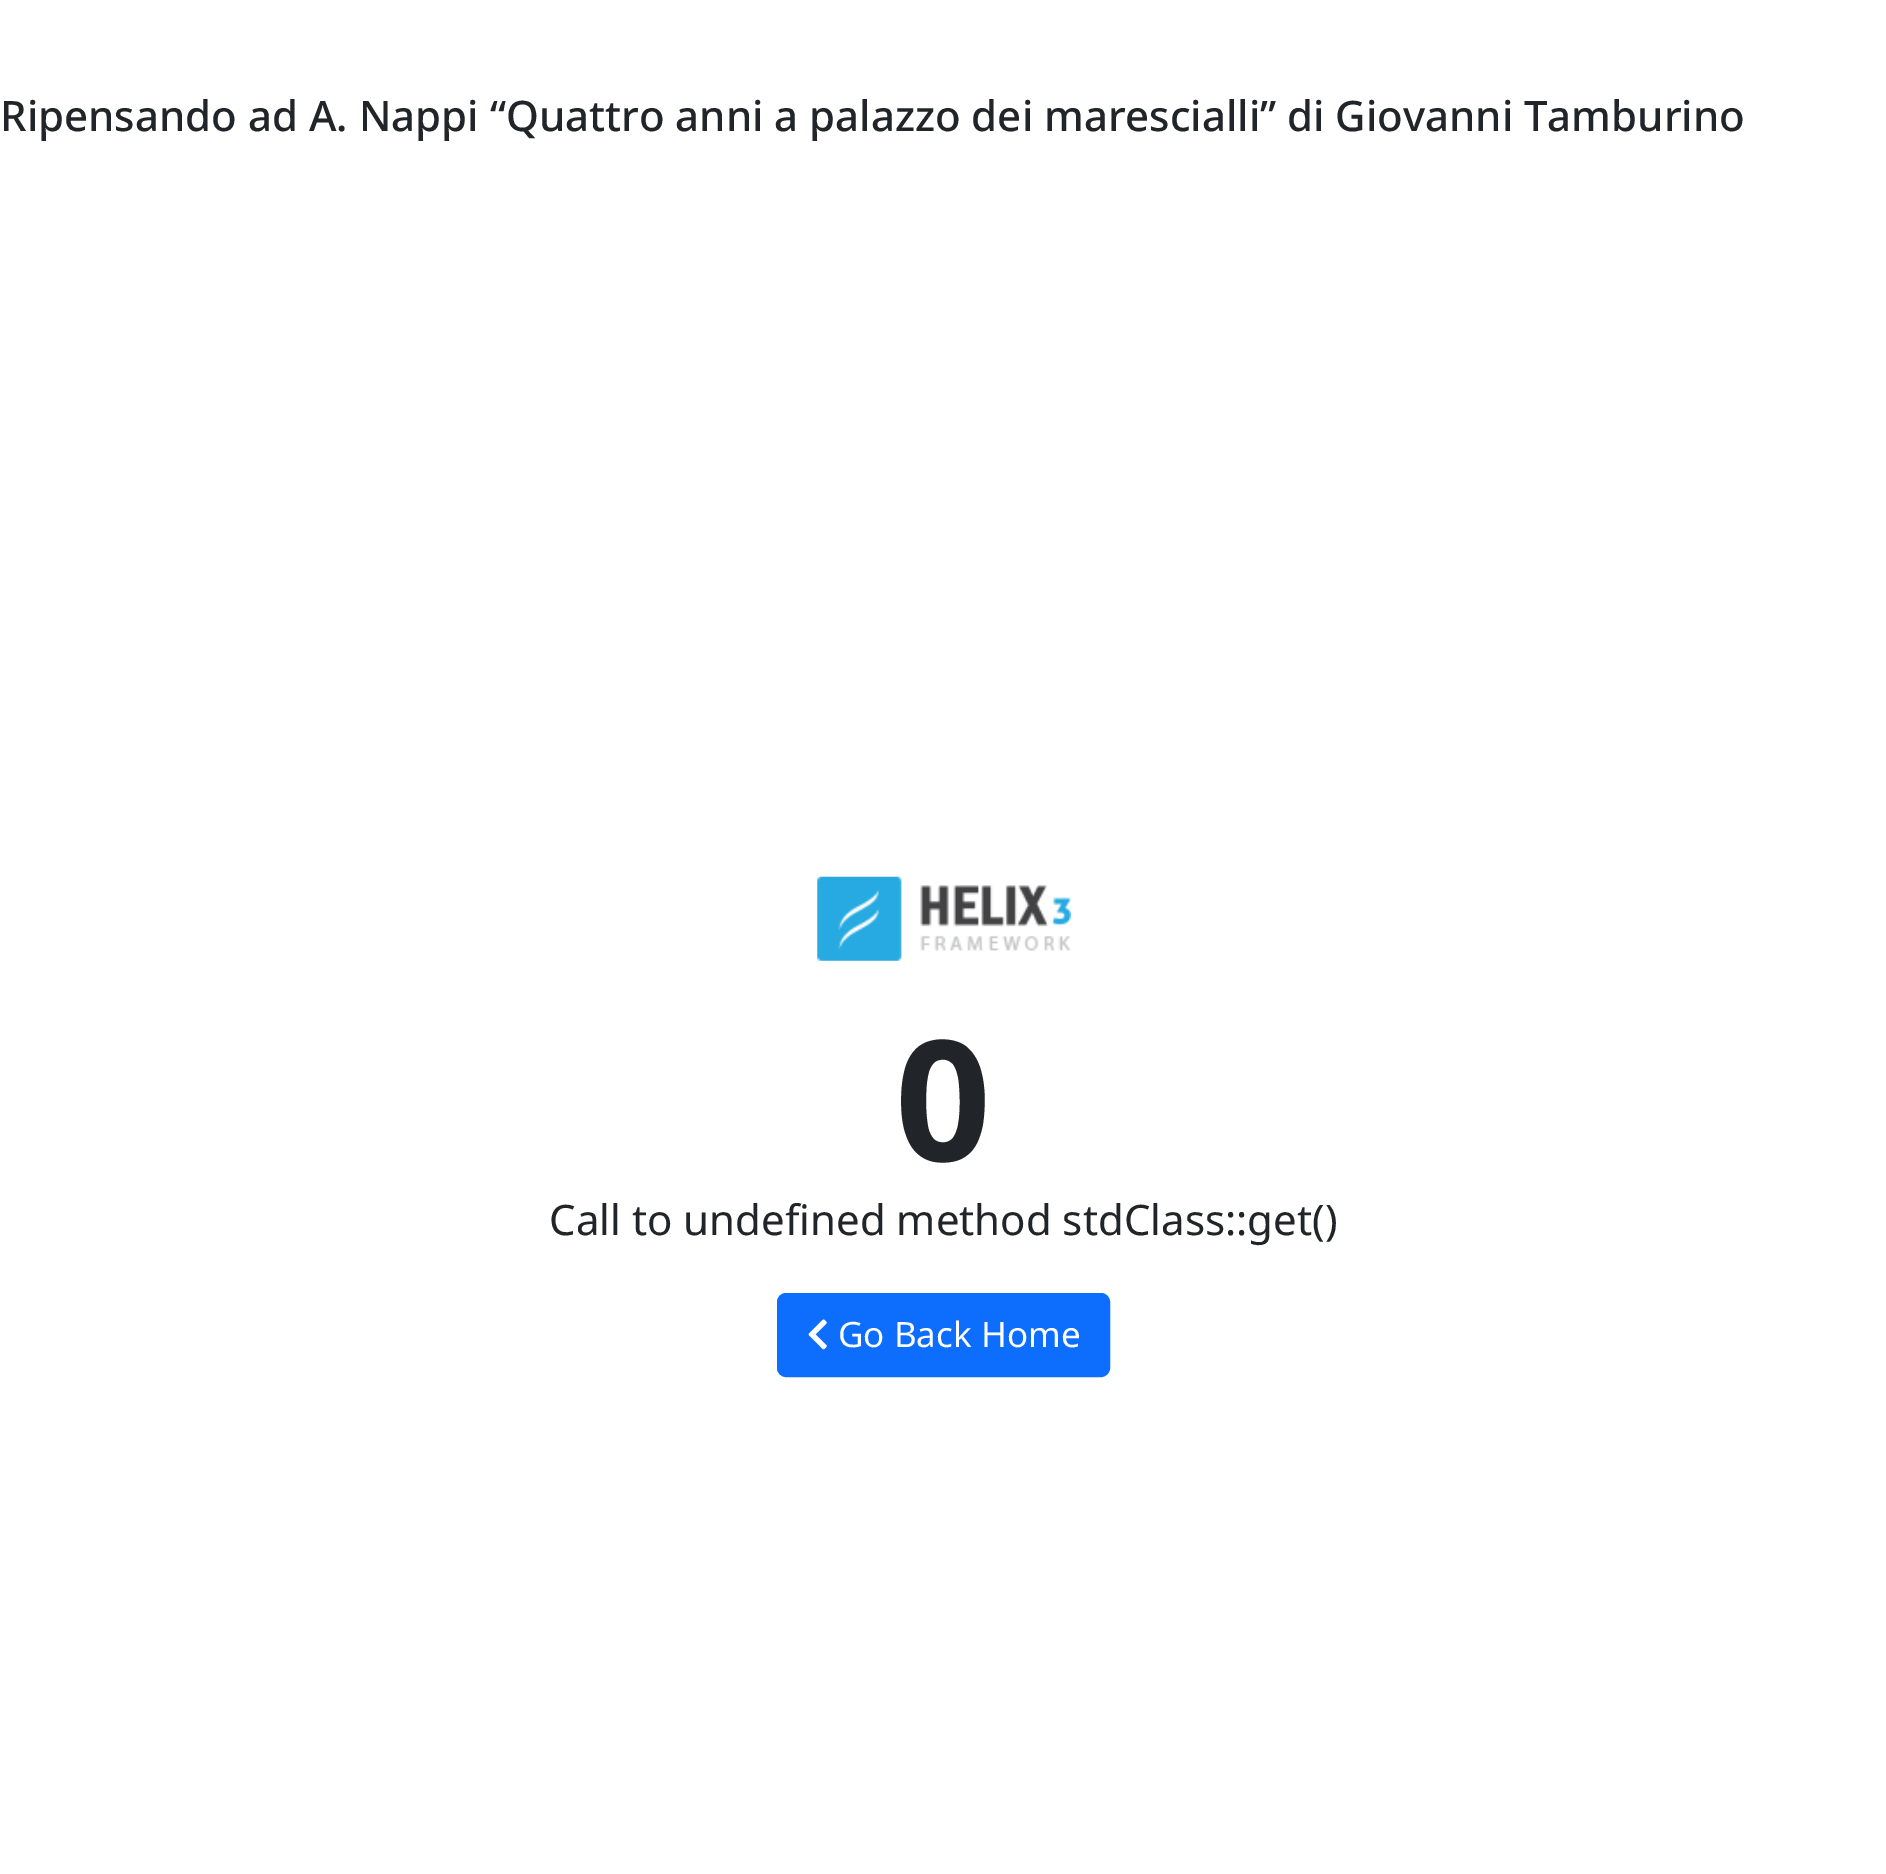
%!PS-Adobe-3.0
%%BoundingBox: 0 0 1886 1874
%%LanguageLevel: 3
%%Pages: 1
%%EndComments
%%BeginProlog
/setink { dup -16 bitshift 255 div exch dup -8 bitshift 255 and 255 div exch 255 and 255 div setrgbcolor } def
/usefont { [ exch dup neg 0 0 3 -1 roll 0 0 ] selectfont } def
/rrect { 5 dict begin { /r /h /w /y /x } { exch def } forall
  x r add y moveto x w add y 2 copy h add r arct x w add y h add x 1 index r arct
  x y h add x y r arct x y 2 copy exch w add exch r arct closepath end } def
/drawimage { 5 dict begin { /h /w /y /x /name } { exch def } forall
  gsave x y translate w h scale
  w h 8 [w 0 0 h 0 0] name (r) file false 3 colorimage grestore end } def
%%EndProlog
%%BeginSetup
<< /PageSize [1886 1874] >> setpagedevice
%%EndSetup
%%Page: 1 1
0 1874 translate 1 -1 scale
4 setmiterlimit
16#FFFFFF setink
0 0 1886 1874 rectfill
/NotoSans-Medium 42 usefont
16#212529 setink
0 131 moveto (Ripensando ad A. Nappi “Quattro anni a palazzo dei marescialli” di Giovanni Tamburino) show
(img1.raw) 817 876 254 85 drawimage
/NotoSans-Bold 168 usefont
895 1161 moveto (0) show
/NotoSans-Regular 42 usefont
549 1235 moveto (Call to undefined method stdClass::get\(\)) show
16#0D6EFD setink
778 1294 331 82 8 rrect gsave fill grestore
2 setlinewidth
stroke
(img2.raw) 808 1319 19 31 drawimage
/NotoSans-Regular 35 usefont
16#FFFFFF setink
838 1347 moveto (Go Back Home) show
showpage
%%EOF
